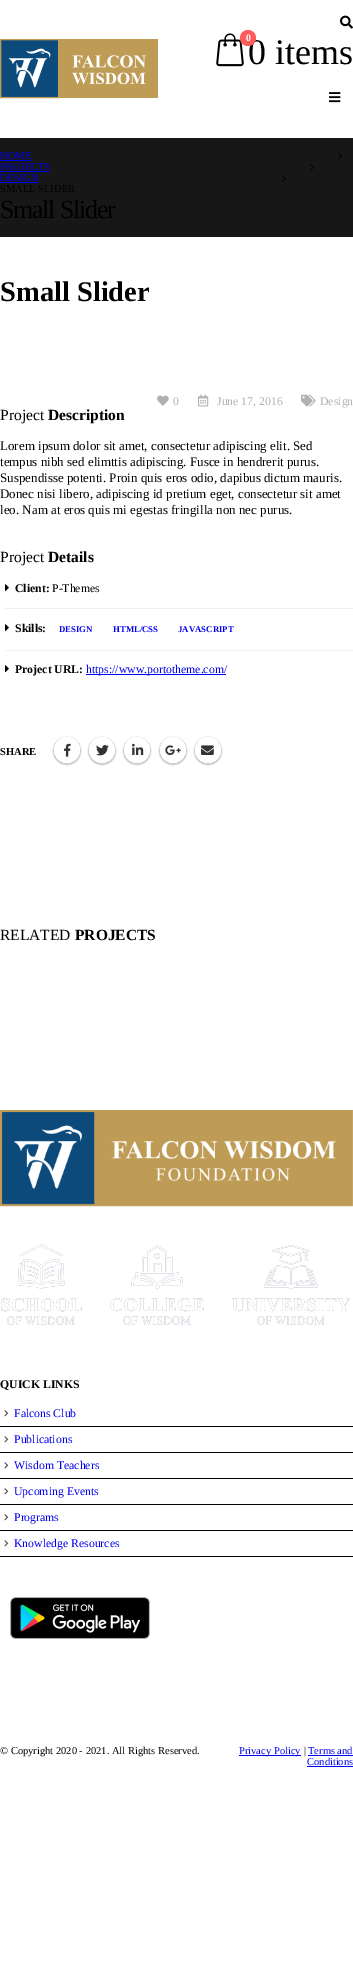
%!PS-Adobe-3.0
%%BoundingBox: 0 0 353 1962
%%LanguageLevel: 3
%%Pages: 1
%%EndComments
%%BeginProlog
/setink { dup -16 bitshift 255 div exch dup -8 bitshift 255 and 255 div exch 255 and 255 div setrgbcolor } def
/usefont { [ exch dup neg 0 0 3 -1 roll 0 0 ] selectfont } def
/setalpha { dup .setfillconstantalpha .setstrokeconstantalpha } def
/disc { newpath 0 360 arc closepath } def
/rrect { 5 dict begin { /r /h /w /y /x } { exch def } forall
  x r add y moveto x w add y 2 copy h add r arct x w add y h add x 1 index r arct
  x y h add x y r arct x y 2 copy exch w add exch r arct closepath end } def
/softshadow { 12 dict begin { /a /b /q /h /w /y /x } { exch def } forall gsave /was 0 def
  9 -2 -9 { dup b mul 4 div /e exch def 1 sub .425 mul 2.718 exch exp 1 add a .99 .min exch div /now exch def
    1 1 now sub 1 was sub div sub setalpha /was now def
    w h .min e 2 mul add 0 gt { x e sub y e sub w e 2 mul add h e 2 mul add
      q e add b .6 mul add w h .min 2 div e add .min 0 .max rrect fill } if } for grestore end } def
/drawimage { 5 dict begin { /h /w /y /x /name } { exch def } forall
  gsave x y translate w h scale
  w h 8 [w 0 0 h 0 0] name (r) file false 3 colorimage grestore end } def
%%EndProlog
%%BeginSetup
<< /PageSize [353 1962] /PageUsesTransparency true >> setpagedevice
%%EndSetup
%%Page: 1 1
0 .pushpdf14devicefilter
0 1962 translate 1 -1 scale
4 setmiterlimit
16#FFFFFF setink
0 0 353 1962 rectfill
(img1.raw) 0 39 158 60 drawimage
(img2.raw) 340 15 13 14 drawimage
(img3.raw) 216 33 28 34 drawimage
/LiberationSerif-Regular 36 usefont
16#000000 setink
248 64 moveto (0 items) show
16#FF5B5B setink
248 38 8 disc fill
/LiberationSerif-Bold 10 usefont
16#FFFFFF setink
246 41 moveto (0) show
(img4.raw) 329 92 12 11 drawimage
16#171717 setink
0 138 353 99 rectfill
/LiberationSerif-Regular 10.5 usefont
16#0000EE setink
0 159 moveto (HOME) show
0 160 31 1 rectfill
(img5.raw) 338 153 4 7 drawimage
0 170 moveto (PROJECTS) show
0 171 50 1 rectfill
(img5.raw) 310 164 4 7 drawimage
0 181 moveto (DESIGN) show
0 182 38 1 rectfill
(img5.raw) 282 175 4 7 drawimage
16#000000 setink
0 192 moveto (SMALL SLIDER) show
/LiberationSerif-Regular 26 usefont
0 218 moveto -1.25 0 (Small Slider) ashow
/LiberationSerif-Bold 28.5 usefont
0 301 moveto (Small Slider) show
(img6.raw) 157 395 12 11 drawimage
/LiberationSerif-Regular 11.75 usefont
16#B1B1B1 setink
173 405 moveto (0) show
(img7.raw) 198 394 11 13 drawimage
217 405 moveto (June 17, 2016) show
(img8.raw) 301 394 15 13 drawimage
320 405 moveto (Design) show
/LiberationSerif-Regular 15.5 usefont
16#000000 setink
0 420 moveto (Project) show
/LiberationSerif-Bold 15.5 usefont
48 420 moveto (Description) show
/LiberationSerif-Regular 13 usefont
[
    [(Lorem ipsum dolor sit amet, consectetur adipiscing elit. Sed) 0 450]
    [(tempus nibh sed elimttis adipiscing. Fusce in hendrerit purus.) 0 466]
    [(Suspendisse potenti. Proin quis eros odio, dapibus dictum mauris.) 0 482]
    [(Donec nisi libero, adipiscing id pretium eget, consectetur sit amet) 0 498]
    [(leo. Nam at eros quis mi egestas fringilla non nec purus.) 0 514]
] { aload pop moveto show } forall
/LiberationSerif-Regular 15.5 usefont
0 562 moveto (Project) show
/LiberationSerif-Bold 15.5 usefont
48 562 moveto (Details) show
16#F0F0F0 setink
5 608 348 1 rectfill
(img9.raw) 5 584 4 7 drawimage
/LiberationSerif-Bold 11.75 usefont
16#000000 setink
15 592 moveto (Client:) show
/LiberationSerif-Regular 11.75 usefont
52 592 moveto (P-Themes) show
16#F0F0F0 setink
5 650 348 1 rectfill
(img9.raw) 5 624 4 7 drawimage
/LiberationSerif-Bold 11.75 usefont
16#000000 setink
15 632 moveto (Skills:) show
/LiberationSerif-Bold 8.75 usefont
16#0000EE setink
[
    [(DESIGN) 59 632]
    [(HTML/CSS) 113 632]
    [(JAVASCRIPT) 178 632]
] { aload pop moveto show } forall
(img9.raw) 5 665 4 7 drawimage
/LiberationSerif-Bold 11.75 usefont
16#000000 setink
15 673 moveto (Project URL:) show
16#0000EE setink
86 674 140 1 rectfill
/LiberationSerif-Regular 11.75 usefont
86 673 moveto (https://www.portotheme.com/) show
/LiberationSerif-Bold 10.5 usefont
16#000000 setink
0 755 moveto (SHARE) show
gsave
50 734 moveto 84 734 lineto 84 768 lineto 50 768 lineto closepath 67 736 moveto 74.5 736 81 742.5 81 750 curveto 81 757.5 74.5 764 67 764 curveto 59.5 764 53 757.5 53 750 curveto 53 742.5 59.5 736 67 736 curveto closepath eoclip newpath
53 737 28 28 14 0.5 0.2 softshadow
grestore
(img10.raw) 64 743 7 14 drawimage
gsave
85 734 moveto 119 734 lineto 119 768 lineto 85 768 lineto closepath 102 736 moveto 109.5 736 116 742.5 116 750 curveto 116 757.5 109.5 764 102 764 curveto 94.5 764 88 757.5 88 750 curveto 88 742.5 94.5 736 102 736 curveto closepath eoclip newpath
88 737 28 28 14 0.5 0.2 softshadow
grestore
(img11.raw) 96 745 13 11 drawimage
gsave
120 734 moveto 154 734 lineto 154 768 lineto 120 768 lineto closepath 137 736 moveto 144.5 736 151 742.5 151 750 curveto 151 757.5 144.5 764 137 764 curveto 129.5 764 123 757.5 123 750 curveto 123 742.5 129.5 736 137 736 curveto closepath eoclip newpath
123 737 28 28 14 0.5 0.2 softshadow
grestore
(img12.raw) 132 743 12 12 drawimage
gsave
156 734 moveto 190 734 lineto 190 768 lineto 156 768 lineto closepath 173 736 moveto 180.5 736 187 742.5 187 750 curveto 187 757.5 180.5 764 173 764 curveto 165.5 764 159 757.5 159 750 curveto 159 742.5 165.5 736 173 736 curveto closepath eoclip newpath
159 737 28 28 14 0.5 0.2 softshadow
grestore
(img13.raw) 165 745 16 10 drawimage
gsave
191 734 moveto 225 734 lineto 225 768 lineto 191 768 lineto closepath 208 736 moveto 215.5 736 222 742.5 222 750 curveto 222 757.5 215.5 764 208 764 curveto 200.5 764 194 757.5 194 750 curveto 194 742.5 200.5 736 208 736 curveto closepath eoclip newpath
194 737 28 28 14 0.5 0.2 softshadow
grestore
(img14.raw) 201 745 13 10 drawimage
/LiberationSerif-Regular 15.5 usefont
0 940 moveto (RELATED) show
/LiberationSerif-Bold 15.5 usefont
75 940 moveto (PROJECTS) show
(img15.raw) 0 1110 353 97 drawimage
(img16.raw) 1 1244 350 81 drawimage
/LiberationSerif-Bold 11.75 usefont
0 1388 moveto (QUICK LINKS) show
0 1556 353 1 rectfill
(img17.raw) 4 1410 5 7 drawimage
/LiberationSerif-Regular 11.75 usefont
16#0000EE setink
14 1417 moveto (Falcons Club) show
16#000000 setink
0 1426 353 1 rectfill
(img17.raw) 4 1436 5 7 drawimage
16#0000EE setink
14 1443 moveto (Publications) show
16#000000 setink
0 1452 353 1 rectfill
(img17.raw) 4 1462 5 7 drawimage
16#0000EE setink
14 1469 moveto (Wisdom Teachers) show
16#000000 setink
0 1478 353 1 rectfill
(img17.raw) 4 1488 5 7 drawimage
16#0000EE setink
14 1495 moveto (Upcoming Events) show
16#000000 setink
0 1504 353 1 rectfill
(img17.raw) 4 1514 5 7 drawimage
16#0000EE setink
14 1521 moveto (Programs) show
16#000000 setink
0 1530 353 1 rectfill
(img17.raw) 4 1540 5 7 drawimage
16#0000EE setink
14 1547 moveto (Knowledge Resources) show
(img18.raw) 10 1597 140 42 drawimage
/LiberationSerif-Regular 10.5 usefont
16#000000 setink
0 1754 moveto (© Copyright 2020 - 2021. All Rights Reserved.) show
16#0000EE setink
239 1755 62 1 rectfill
239 1754 moveto (Privacy Policy) show
16#000000 setink
304 1754 moveto (|) show
16#0000EE setink
308 1754 moveto (Terms and) show
308 1755 45 1 rectfill
307 1765 moveto (Conditions) show
307 1766 46 1 rectfill
.poppdf14devicefilter showpage
%%EOF
